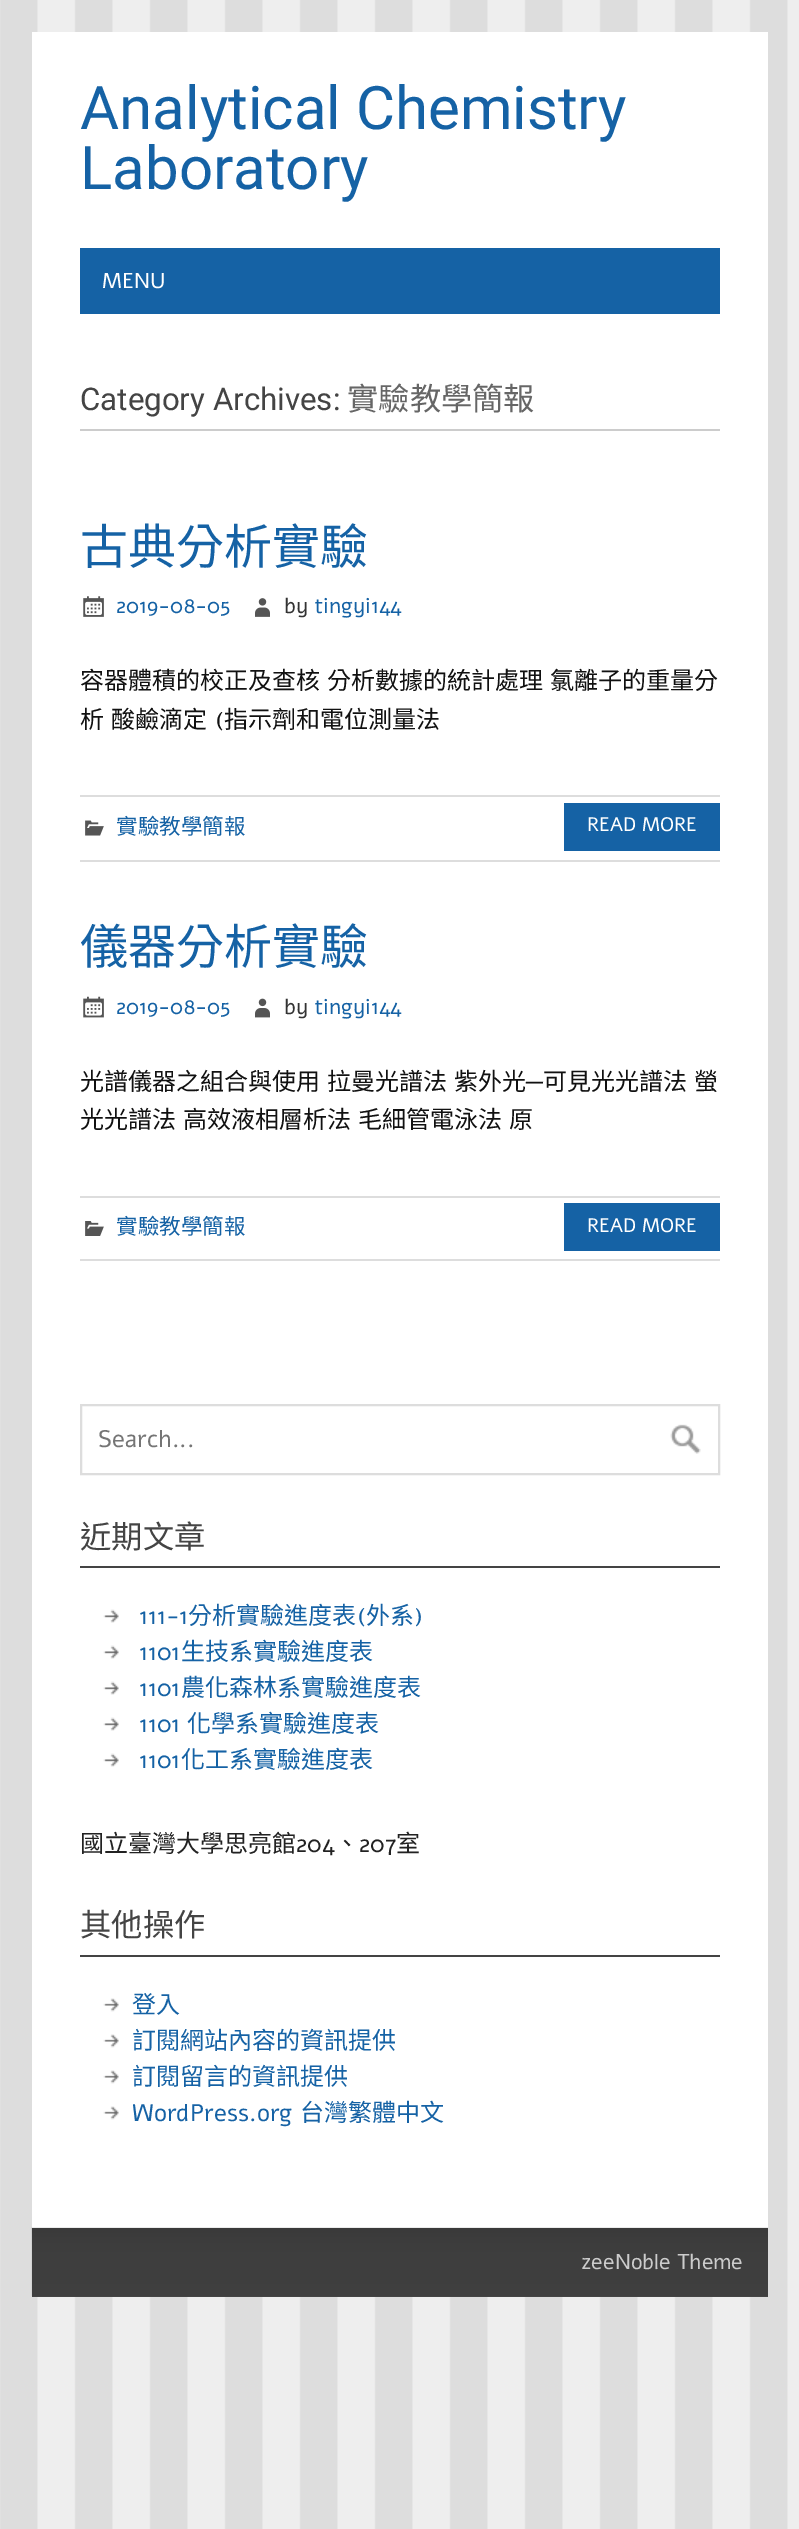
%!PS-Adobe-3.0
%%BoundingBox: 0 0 799 2529
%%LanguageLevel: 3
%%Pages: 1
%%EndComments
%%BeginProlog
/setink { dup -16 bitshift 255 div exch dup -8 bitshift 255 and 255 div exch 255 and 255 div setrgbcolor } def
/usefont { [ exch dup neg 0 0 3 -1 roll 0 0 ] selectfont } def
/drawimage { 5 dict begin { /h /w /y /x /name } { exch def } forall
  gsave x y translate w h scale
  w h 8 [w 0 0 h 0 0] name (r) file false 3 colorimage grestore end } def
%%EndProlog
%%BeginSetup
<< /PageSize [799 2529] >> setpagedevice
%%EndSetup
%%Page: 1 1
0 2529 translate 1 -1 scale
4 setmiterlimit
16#EEEEEE setink
0 0 799 2529 rectfill
(img1.raw) 0 0 788 2529 drawimage
16#FFFFFF setink
32 32 736 2196 rectfill
/Roboto-Regular 60 usefont
16#1562A5 setink
80 129 moveto (Analytical Chemistry) show
80 189 moveto (Laboratory) show
80 248 640 66 rectfill
/Alef-Regular 21.5 usefont
16#FFFFFF setink
102 288 moveto (MENU) show
16#CCCCCC setink
80 429 640 2 rectfill
/Roboto-Regular 31.25 usefont
16#444444 setink
80 410 moveto (Category Archives:) show
/NotoSansCJKTC-Regular 31.25 usefont
16#666666 setink
347 410 moveto (實驗教學簡報) show
/NotoSansCJKTC-Regular 48 usefont
16#1562A5 setink
80 564 moveto (古典分析實驗) show
(img2.raw) 83 596 21 21 drawimage
/Alef-Regular 21.5 usefont
116 613 moveto (2019-08-05) show
(img3.raw) 255 598 15 19 drawimage
16#333333 setink
284 613 moveto (by) show
16#1562A5 setink
314 613 moveto (tingyi144) show
/NotoSansCJKTC-Regular 24 usefont
16#111111 setink
80 689 moveto 1.5 0 32 (容器體積的校正及查核 分析數據的統計處理 氯離子的重量分) widthshow
80 728 moveto 1.5 0 32 (析 酸鹼滴定) widthshow
/Alef-Regular 24 usefont
215 728 moveto (\() show
/NotoSansCJKTC-Regular 24 usefont
224 728 moveto (指示劑和電位測量法) show
16#DDDDDD setink
80 795 640 2 rectfill
80 860 640 2 rectfill
(img4.raw) 85 820 19 16 drawimage
/NotoSansCJKTC-Regular 21.5 usefont
16#1562A5 setink
116 834 moveto (實驗教學簡報) show
564 803 156 48 rectfill
/Alef-Regular 19.5 usefont
16#FFFFFF setink
587 831 moveto (READ MORE) show
/NotoSansCJKTC-Regular 48 usefont
16#1562A5 setink
80 964 moveto (儀器分析實驗) show
(img5.raw) 83 996 21 22 drawimage
/Alef-Regular 21.5 usefont
116 1014 moveto (2019-08-05) show
(img6.raw) 255 998 15 20 drawimage
16#333333 setink
284 1014 moveto (by) show
16#1562A5 setink
314 1014 moveto (tingyi144) show
/NotoSansCJKTC-Regular 24 usefont
16#111111 setink
80 1090 moveto 1.5 0 32 (光譜儀器之組合與使用 拉曼光譜法 紫外光) widthshow
/LiberationSans-Regular 24 usefont
526 1090 moveto (─) show
/NotoSansCJKTC-Regular 24 usefont
543 1090 moveto 1.5 0 32 (可見光光譜法 螢) widthshow
80 1128 moveto 1.5 0 32 (光光譜法 高效液相層析法 毛細管電泳法 原) widthshow
16#DDDDDD setink
80 1196 640 2 rectfill
80 1259 640 2 rectfill
(img7.raw) 85 1221 19 15 drawimage
/NotoSansCJKTC-Regular 21.5 usefont
16#1562A5 setink
116 1234 moveto (實驗教學簡報) show
564 1203 156 48 rectfill
/Alef-Regular 19.5 usefont
16#FFFFFF setink
587 1232 moveto (READ MORE) show
16#DDDDDD setink
2 setlinewidth
81 1405 638 69 rectstroke
/Alef-Regular 24 usefont
16#757575 setink
98 1447 moveto (Search...) show
(img8.raw) 670 1424 31 30 drawimage
16#444444 setink
80 1566 640 2 rectfill
/NotoSansCJKTC-Regular 31.25 usefont
80 1548 moveto (近期文章) show
(img9.raw) 103 1609 16 14 drawimage
/Alef-Regular 24 usefont
16#1562A5 setink
139 1624 moveto (111-1) show
/NotoSansCJKTC-Regular 24 usefont
188 1624 moveto (分析實驗進度表) show
/Alef-Regular 24 usefont
357 1624 moveto (\() show
/NotoSansCJKTC-Regular 24 usefont
366 1624 moveto (外系) show
/Alef-Regular 24 usefont
414 1624 moveto (\)) show
(img9.raw) 103 1645 16 14 drawimage
139 1660 moveto (1101) show
/NotoSansCJKTC-Regular 24 usefont
181 1660 moveto (生技系實驗進度表) show
(img9.raw) 103 1681 16 14 drawimage
/Alef-Regular 24 usefont
139 1696 moveto (1101) show
/NotoSansCJKTC-Regular 24 usefont
181 1696 moveto (農化森林系實驗進度表) show
(img9.raw) 103 1717 16 14 drawimage
/Alef-Regular 24 usefont
139 1732 moveto (1101) show
/NotoSansCJKTC-Regular 24 usefont
187 1732 moveto (化學系實驗進度表) show
(img9.raw) 103 1753 16 14 drawimage
/Alef-Regular 24 usefont
139 1768 moveto (1101) show
/NotoSansCJKTC-Regular 24 usefont
181 1768 moveto (化工系實驗進度表) show
16#222222 setink
80 1852 moveto (國立臺灣大學思亮館) show
/Alef-Regular 24 usefont
296 1852 moveto (204) show
/NotoSansCJKTC-Regular 24 usefont
335 1852 moveto (、) show
/Alef-Regular 24 usefont
359 1852 moveto (207) show
/NotoSansCJKTC-Regular 24 usefont
396 1852 moveto (室) show
16#444444 setink
80 1955 640 2 rectfill
/NotoSansCJKTC-Regular 31.25 usefont
80 1936 moveto (其他操作) show
(img10.raw) 103 1998 16 14 drawimage
/NotoSansCJKTC-Regular 24 usefont
16#1562A5 setink
132 2013 moveto (登入) show
(img10.raw) 103 2034 16 14 drawimage
132 2049 moveto (訂閱網站內容的資訊提供) show
(img10.raw) 103 2070 16 14 drawimage
132 2085 moveto (訂閱留言的資訊提供) show
(img10.raw) 103 2106 16 14 drawimage
/Alef-Regular 24 usefont
132 2121 moveto (WordPress.org) show
/NotoSansCJKTC-Regular 24 usefont
300 2121 moveto (台灣繁體中文) show
16#444444 setink
32 2228 736 69 rectfill
(img11.raw) 31 2227 737 69 drawimage
/Alef-Regular 21.5 usefont
16#CCCCCC setink
581 2269 moveto (zeeNoble Theme) show
showpage
%%EOF
